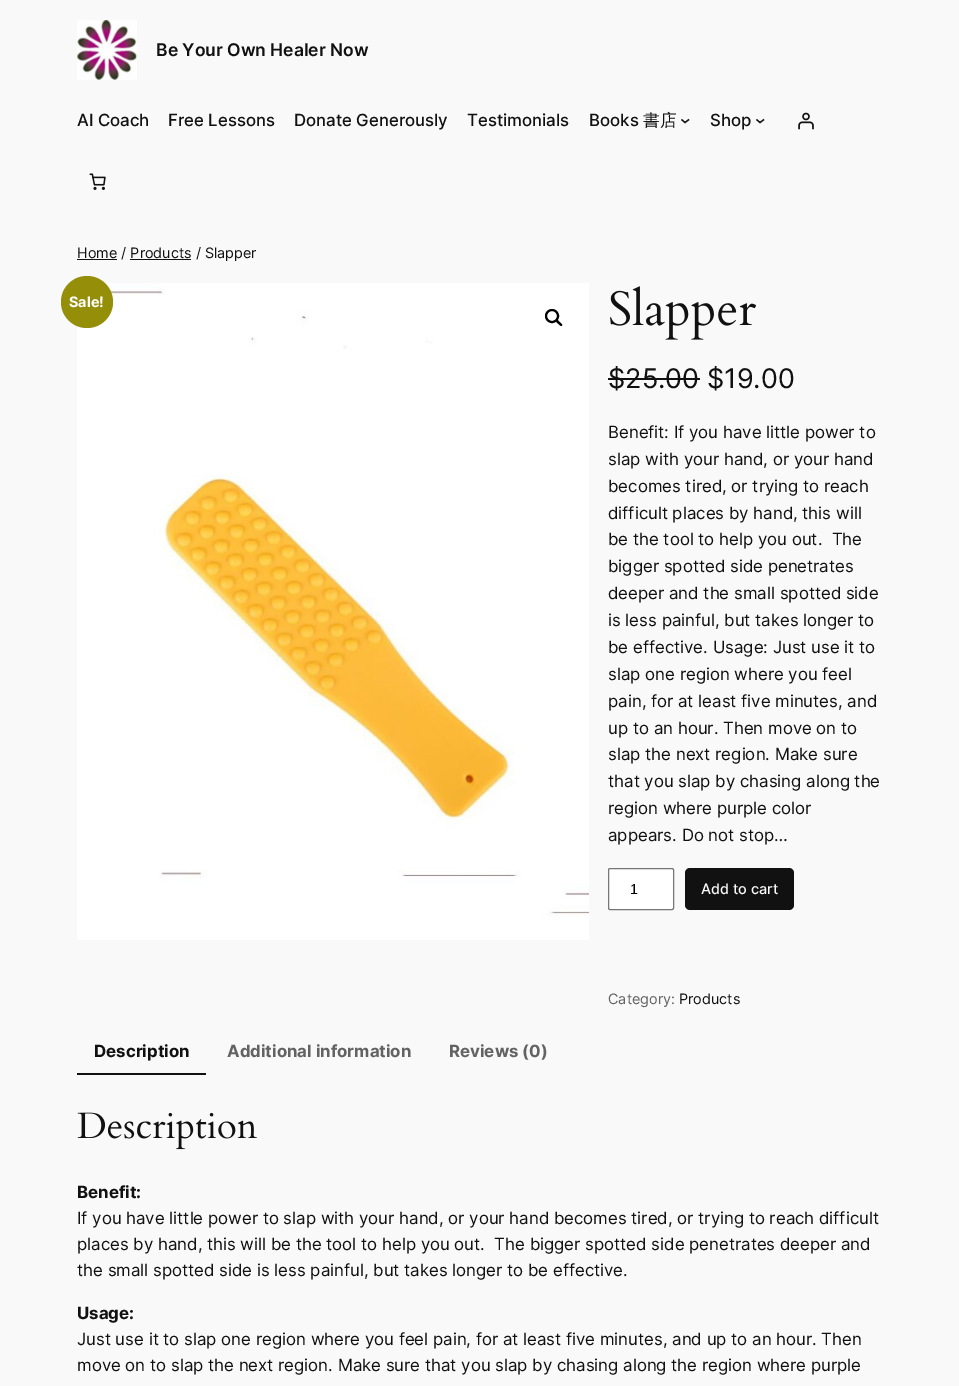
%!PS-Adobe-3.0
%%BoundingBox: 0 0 959 1386
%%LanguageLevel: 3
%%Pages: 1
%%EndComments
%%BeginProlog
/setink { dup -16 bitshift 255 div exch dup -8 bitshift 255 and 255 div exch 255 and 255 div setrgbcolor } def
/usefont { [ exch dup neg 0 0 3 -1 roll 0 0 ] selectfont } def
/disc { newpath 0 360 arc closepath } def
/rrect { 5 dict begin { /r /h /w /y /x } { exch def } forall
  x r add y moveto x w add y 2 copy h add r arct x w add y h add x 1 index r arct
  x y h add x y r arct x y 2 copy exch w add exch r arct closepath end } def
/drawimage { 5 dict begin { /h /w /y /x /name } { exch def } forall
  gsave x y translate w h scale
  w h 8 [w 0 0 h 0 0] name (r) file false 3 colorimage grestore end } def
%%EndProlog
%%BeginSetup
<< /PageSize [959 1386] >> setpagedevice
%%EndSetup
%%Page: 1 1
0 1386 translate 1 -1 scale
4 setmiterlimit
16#F9F9F9 setink
0 0 959 1386 rectfill
(img1.raw) 77 20 60 60 drawimage
/Inter-SemiBold 17.5 usefont
16#111111 setink
156 56 moveto (Be Your Own Healer Now) show
/Inter-Medium 16.8 usefont
[
    [(AI Coach) 77 126]
    [(Free Lessons) 168 126]
    [(Donate Generously) 294 126]
    [(Testimonials) 467 126]
    [(Books) 589 126]
] { aload pop moveto show } forall
/WenQuanYiZenHei-Medium 16.8 usefont
643 126 moveto (書店) show
1.3 setlinewidth
681.5 119.5 moveto 685 122.5 lineto 689 119.5 lineto stroke
/Inter-Medium 16.8 usefont
710 126 moveto (Shop) show
756.5 119.5 moveto 760 122.5 lineto 764 119.5 lineto stroke
(img2.raw) 798 112 16 18 drawimage
(img3.raw) 89 173 17 17 drawimage
77 259 40 1 rectfill
/Inter-Regular 14.4 usefont
77 258 moveto (Home / Products / Slapper) show
130 259 61 1 rectfill
(img4.raw) 77 283 512 657 drawimage
16#000000 setink
2 setlinewidth
552 316 6 disc stroke
556 320 moveto 557.5 319 559 321.5 559.5 322 curveto 560 322.5 563 324.5 562 325.5 curveto 560.5 327 559 324 558 323.5 curveto 557.5 323 555 321 556 320 curveto closepath fill
16#958E09 setink
87 302 26 disc fill
/Inter-Bold 14.4 usefont
16#FFFFFF setink
69 307 moveto (Sale!) show
(img5.raw) 610 286 146 54 drawimage
/Inter-Regular 27 usefont
16#111111 setink
608 388 moveto ($25.00 $19.00) show
608 378 92 2 rectfill
/Inter-Regular 16.8 usefont
[
    [(Benefit: If you have little power to) 608 438]
    [(slap with your hand, or your hand) 608 465]
    [(becomes tired, or trying to reach) 608 492]
    [(difficult places by hand, this will) 608 519]
    [(be the tool to help you out.  The) 608 545]
    [(bigger spotted side penetrates) 608 572]
    [(deeper and the small spotted side) 608 599]
    [(is less painful, but takes longer to) 608 626]
    [(be effective. Usage: Just use it to) 608 653]
    [(slap one region where you feel) 608 680]
    [(pain, for at least five minutes, and) 608 707]
    [(up to an hour. Then move on to) 608 734]
    [(slap the next region. Make sure) 608 760]
    [(that you slap by chasing along the) 608 787]
    [(region where purple color) 608 814]
    [(appears. Do not stop…) 608 841]
] { aload pop moveto show } forall
16#FFFFFF setink
608.5 868.5 65 41 1.5 rrect gsave fill grestore
16#767676 setink
1 setlinewidth
stroke
/LiberationSans-Regular 14.4 usefont
16#000000 setink
630 894 moveto (1) show
16#111111 setink
685 868 109 42 5 rrect fill
/Inter-Medium 14.4 usefont
16#F9F9F9 setink
701 894 moveto (Add to cart) show
/Inter-Regular 14.4 usefont
16#636363 setink
608 1004 moveto (Category:) show
16#111111 setink
679 1004 moveto (Products) show
77 1073 129 2 rectfill
/Inter-Bold 16.8 usefont
94 1057 moveto (Description) show
16#636363 setink
227 1057 moveto (Additional information) show
449 1057 moveto (Reviews \(0\)) show
(img6.raw) 77 1112 180 38 drawimage
16#111111 setink
77 1198 moveto (Benefit:) show
/Inter-Regular 16.8 usefont
[
    [(If you have little power to slap with your hand, or your hand becomes tired, or trying to reach difficult) 77 1224]
    [(places by hand, this will be the tool to help you out.  The bigger spotted side penetrates deeper and) 77 1250]
    [(the small spotted side is less painful, but takes longer to be effective.) 77 1276]
] { aload pop moveto show } forall
/Inter-Bold 16.8 usefont
77 1319 moveto (Usage:) show
/Inter-Regular 16.8 usefont
77 1345 moveto (Just use it to slap one region where you feel pain, for at least five minutes, and up to an hour. Then) show
77 1371 moveto (move on to slap the next region. Make sure that you slap by chasing along the region where purple) show
showpage
%%EOF
